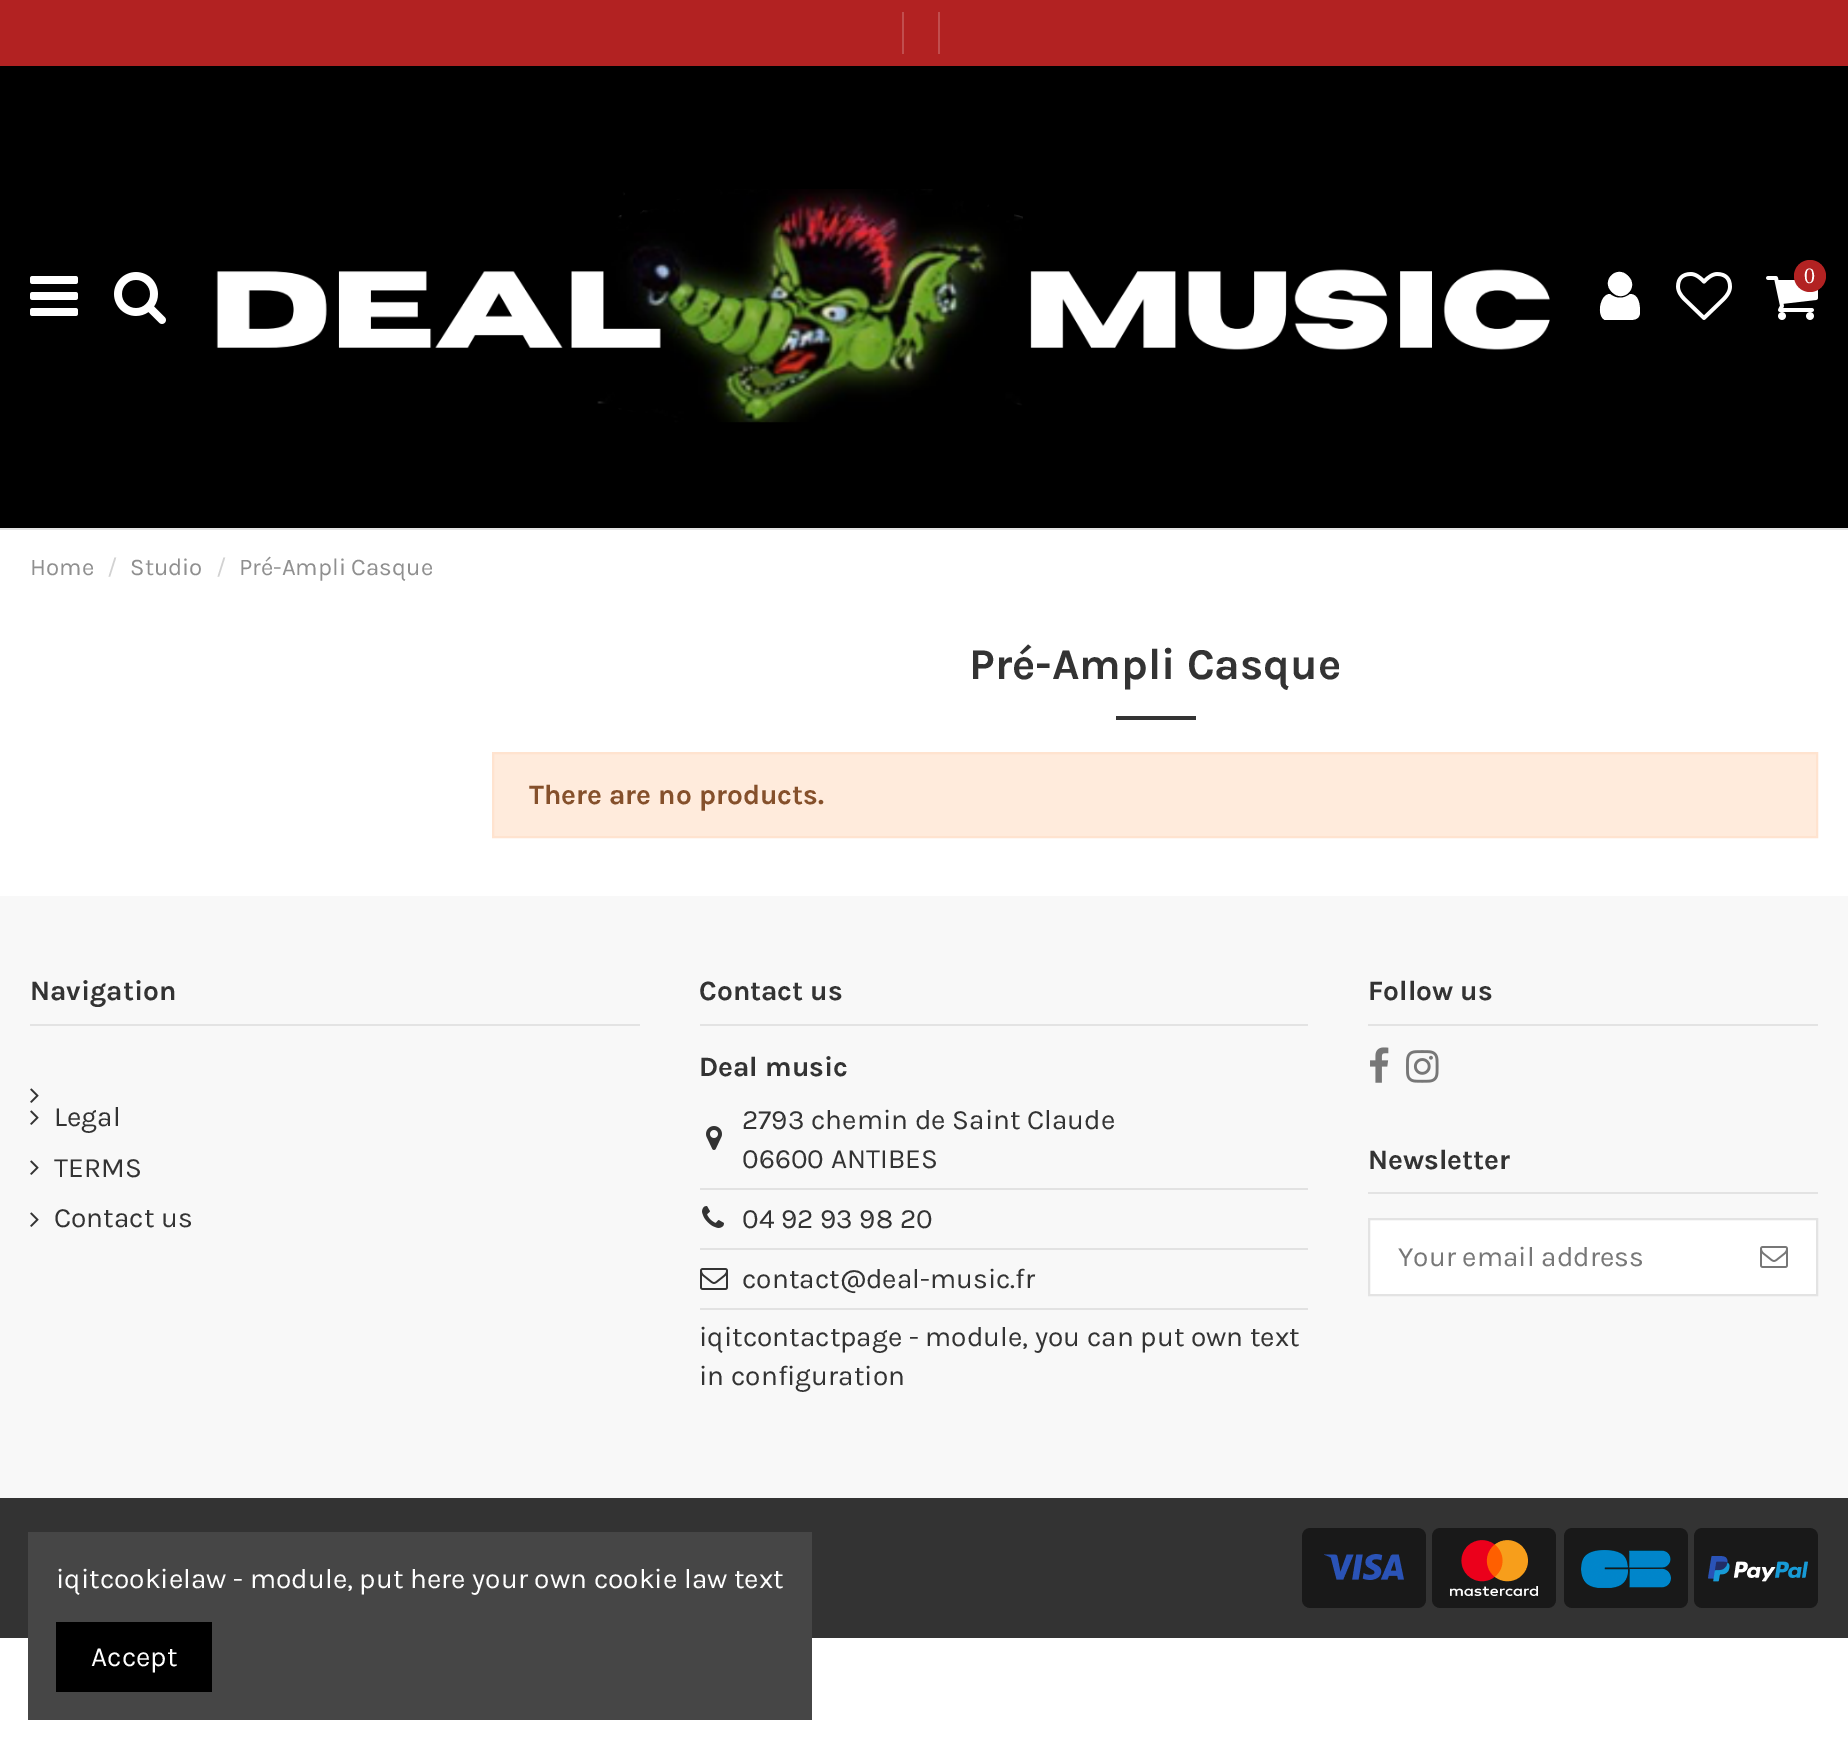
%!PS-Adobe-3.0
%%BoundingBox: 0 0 1848 1748
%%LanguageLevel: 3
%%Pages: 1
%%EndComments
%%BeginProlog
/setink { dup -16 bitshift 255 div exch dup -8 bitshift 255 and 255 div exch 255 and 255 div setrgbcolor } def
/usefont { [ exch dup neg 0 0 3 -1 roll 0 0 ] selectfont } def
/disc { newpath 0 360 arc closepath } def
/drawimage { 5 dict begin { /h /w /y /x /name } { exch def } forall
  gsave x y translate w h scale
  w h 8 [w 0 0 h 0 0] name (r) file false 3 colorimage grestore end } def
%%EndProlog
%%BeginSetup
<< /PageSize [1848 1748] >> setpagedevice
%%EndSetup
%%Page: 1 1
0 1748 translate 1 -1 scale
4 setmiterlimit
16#FFFFFF setink
0 0 1848 1748 rectfill
[
    [0 66 1848 462 16#000000]
    [0 0 1848 66 16#B22222]
    [902 12 2 42 16#C14E4E]
    [938 12 2 42 16#C14E4E]
    [0 528 1848 2 16#E3E3E3]
] { aload pop setink rectfill } forall
(img1.raw) 30 276 48 40 drawimage
(img2.raw) 114 272 52 52 drawimage
(img3.raw) 216 189 1334 234 drawimage
16#FFFFFF setink
1640 312 moveto 1640 319 1635 320 1629 320 curveto 1605 320 lineto 1596 316 1600 294 1610 294 curveto 1616 299 1624 299 1630 294 curveto 1639 294 1640 305 1640 312 curveto closepath 1628 276 moveto 1640 287 1623 304 1612 292 curveto 1600 281 1617 264 1628 276 curveto closepath fill
(img4.raw) 1676 272 56 48 drawimage
(img5.raw) 1766 276 52 44 drawimage
16#B22222 setink
1810 276 16 disc fill
/LiberationSerif-Regular 22 usefont
16#FFFFFF setink
1804 283 moveto (0) show
/Karla-Regular 24 usefont
16#8F8F8F setink
30 575 moveto (Home) show
16#D2D2D2 setink
107 575 moveto (/) show
16#8F8F8F setink
130 575 moveto (Studio) show
16#D2D2D2 setink
216 575 moveto (/) show
16#8F8F8F setink
239 575 moveto (Pré-Ampli Casque) show
/Karla-Bold 44 usefont
16#333333 setink
969 679 moveto (Pré-Ampli Casque) show
1116 716 80 4 rectfill
16#FFEBDC setink
493 753 moveto 1817 753 lineto 1817 837 lineto 493 837 lineto closepath gsave fill grestore
16#FFE3CF setink
2 setlinewidth
stroke
/Karla-Bold 28 usefont
16#85502B setink
529 804 moveto (There are no products.) show
16#F8F8F8 setink
0 896 1848 602 rectfill
16#E3E3E3 setink
30 1024 610 2 rectfill
16#333333 setink
30 1000 moveto (Navigation) show
(img6.raw) 30 1088 9 15 drawimage
(img6.raw) 30 1110 9 15 drawimage
/Karla-Regular 28 usefont
54 1126 moveto (Legal) show
(img6.raw) 30 1160 9 15 drawimage
54 1177 moveto (TERMS) show
(img6.raw) 30 1212 9 15 drawimage
54 1227 moveto (Contact us) show
16#E3E3E3 setink
700 1024 608 2 rectfill
/Karla-Bold 28 usefont
16#333333 setink
699 1000 moveto (Contact us) show
699 1076 moveto (Deal music) show
(img7.raw) 706 1126 16 24 drawimage
/Karla-Regular 28 usefont
742 1129 moveto (2793 chemin de Saint Claude) show
742 1168 moveto (06600 ANTIBES) show
16#E2E2E2 setink
700 1188 608 2 rectfill
(img8.raw) 702 1206 22 22 drawimage
16#333333 setink
742 1228 moveto (04 92 93 98 20) show
16#E2E2E2 setink
700 1248 608 2 rectfill
(img9.raw) 700 1268 28 22 drawimage
16#333333 setink
742 1288 moveto (contact@deal-music.fr) show
16#E2E2E2 setink
700 1308 608 2 rectfill
16#333333 setink
699 1346 moveto (iqitcontactpage - module, you can put own text) show
699 1385 moveto (in configuration) show
16#E3E3E3 setink
1368 1024 450 2 rectfill
/Karla-Bold 28 usefont
16#333333 setink
1368 1000 moveto (Follow us) show
(img10.raw) 1370 1047 19 36 drawimage
(img11.raw) 1406 1050 33 33 drawimage
16#E3E3E3 setink
1368 1192 450 2 rectfill
16#333333 setink
1368 1169 moveto (Newsletter) show
16#FFFFFF setink
1369 1219 moveto 1817 1219 lineto 1817 1295 lineto 1369 1295 lineto closepath gsave fill grestore
16#E3E3E3 setink
stroke
/Karla-Regular 28 usefont
16#777777 setink
1398 1266 moveto (Your email address) show
(img12.raw) 1760 1246 28 22 drawimage
16#333333 setink
0 1498 1848 140 rectfill
(img13.raw) 1302 1528 124 80 drawimage
(img14.raw) 1432 1528 124 80 drawimage
(img15.raw) 1564 1528 124 80 drawimage
(img16.raw) 1694 1528 124 80 drawimage
16#464646 setink
28 1532 784 188 rectfill
16#FFFFFF setink
56 1588 moveto (iqitcookielaw - module, put here your own cookie law text) show
16#000000 setink
56 1622 156 70 rectfill
16#FFFFFF setink
91 1666 moveto (Accept) show
showpage
%%EOF
